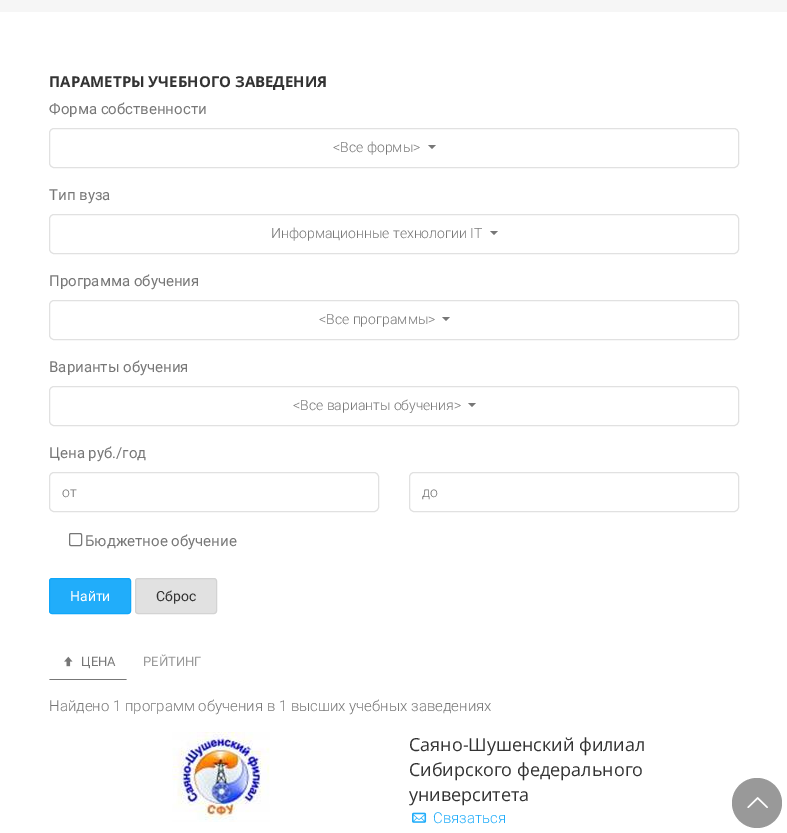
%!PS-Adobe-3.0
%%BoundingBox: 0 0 787 833
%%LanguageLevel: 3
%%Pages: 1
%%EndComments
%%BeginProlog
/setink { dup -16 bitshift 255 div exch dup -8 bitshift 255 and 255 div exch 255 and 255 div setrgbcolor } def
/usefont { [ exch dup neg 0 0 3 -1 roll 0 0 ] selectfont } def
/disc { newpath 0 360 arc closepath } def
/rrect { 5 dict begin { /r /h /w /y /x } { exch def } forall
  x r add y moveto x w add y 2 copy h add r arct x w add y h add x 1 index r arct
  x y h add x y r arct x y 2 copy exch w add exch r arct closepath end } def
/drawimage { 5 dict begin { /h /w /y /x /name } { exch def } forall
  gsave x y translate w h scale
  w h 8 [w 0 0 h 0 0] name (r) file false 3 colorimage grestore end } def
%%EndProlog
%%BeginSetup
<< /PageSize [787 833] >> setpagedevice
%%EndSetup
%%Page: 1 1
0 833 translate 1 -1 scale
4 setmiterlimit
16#FFFFFF setink
0 0 787 833 rectfill
16#F6F6F6 setink
0 0 787 12 rectfill
/OpenSans-Bold 15 usefont
16#333333 setink
49 87 moveto (ПАРАМЕТРЫ УЧЕБНОГО ЗАВЕДЕНИЯ) show
/Roboto-Regular 15 usefont
16#777777 setink
49 114 moveto (Форма собственности) show
16#E1E1E1 setink
49.5 128.5 689 39 4.5 rrect stroke
/Roboto-Light 14 usefont
16#777777 setink
333 152 moveto (<Все формы>) show
428 145 moveto 436 145 lineto 432 149 lineto closepath fill
/Roboto-Regular 15 usefont
49 200 moveto (Тип вуза) show
16#E1E1E1 setink
49.5 214.5 689 39 4.5 rrect stroke
/Roboto-Light 14 usefont
16#777777 setink
271 238 moveto (Информационные технологии IT) show
490 231 moveto 498 231 lineto 494 235 lineto closepath fill
/Roboto-Regular 15 usefont
49 286 moveto (Программа обучения) show
16#E1E1E1 setink
49.5 300.5 689 39 4.5 rrect stroke
/Roboto-Light 14 usefont
16#777777 setink
319 324 moveto (<Все программы>) show
442 317 moveto 450 317 lineto 446 321 lineto closepath fill
/Roboto-Regular 15 usefont
49 372 moveto (Варианты обучения) show
16#E1E1E1 setink
49.5 386.5 689 39 4.5 rrect stroke
/Roboto-Light 14 usefont
16#777777 setink
293 410 moveto (<Все варианты обучения>) show
468 403 moveto 476 403 lineto 472 407 lineto closepath fill
/Roboto-Regular 15 usefont
49 458 moveto (Цена руб./год) show
16#E1E1E1 setink
49.5 472.5 329 39 4.5 rrect stroke
/Roboto-Light 14 usefont
16#777777 setink
62 497 moveto (от) show
16#E1E1E1 setink
409.5 472.5 329 39 4.5 rrect stroke
gsave
422 484 286 16 rectclip
16#777777 setink
422 497 moveto (до) show
grestore
16#767676 setink
69.5 533.5 12 12 1.5 rrect stroke
/Roboto-Regular 15 usefont
16#777777 setink
85 546 moveto (Бюджетное обучение) show
16#21ADFA setink
49.5 578.5 81 35 2.5 rrect gsave fill grestore
16#0FA7FA setink
stroke
/Roboto-Regular 14 usefont
16#FFFFFF setink
70 601 moveto (Найти) show
16#E1E1E1 setink
135.5 578.5 81 35 2.5 rrect gsave fill grestore
16#D3D3D3 setink
stroke
16#333333 setink
156 601 moveto (Сброс) show
16#777777 setink
127 680 moveto 49 680 lineto 50 679 lineto 126 679 lineto closepath fill
(img1.raw) 64 656 9 11 drawimage
/Roboto-Regular 13 usefont
81 666 moveto (ЦЕНА) show
16#999999 setink
143 666 moveto (РЕЙТИНГ) show
/Roboto-Light 15 usefont
16#777777 setink
49 711 moveto (Найдено 1 программ обучения в 1 высших учебных заведениях) show
(img2.raw) 172 732 98 90 drawimage
/OpenSans-Regular 18 usefont
16#333333 setink
[
    [(Саяно-Шушенский филиал) 409 751]
    [(Сибирского федерального) 409 776]
    [(университета) 409 801]
] { aload pop moveto show } forall
(img3.raw) 412 812 15 11 drawimage
/Roboto-Light 15 usefont
16#21ADFA setink
433 823 moveto (Связаться) show
16#999999 setink
757 803 25 disc fill
(img4.raw) 747 797 21 11 drawimage
showpage
%%EOF
